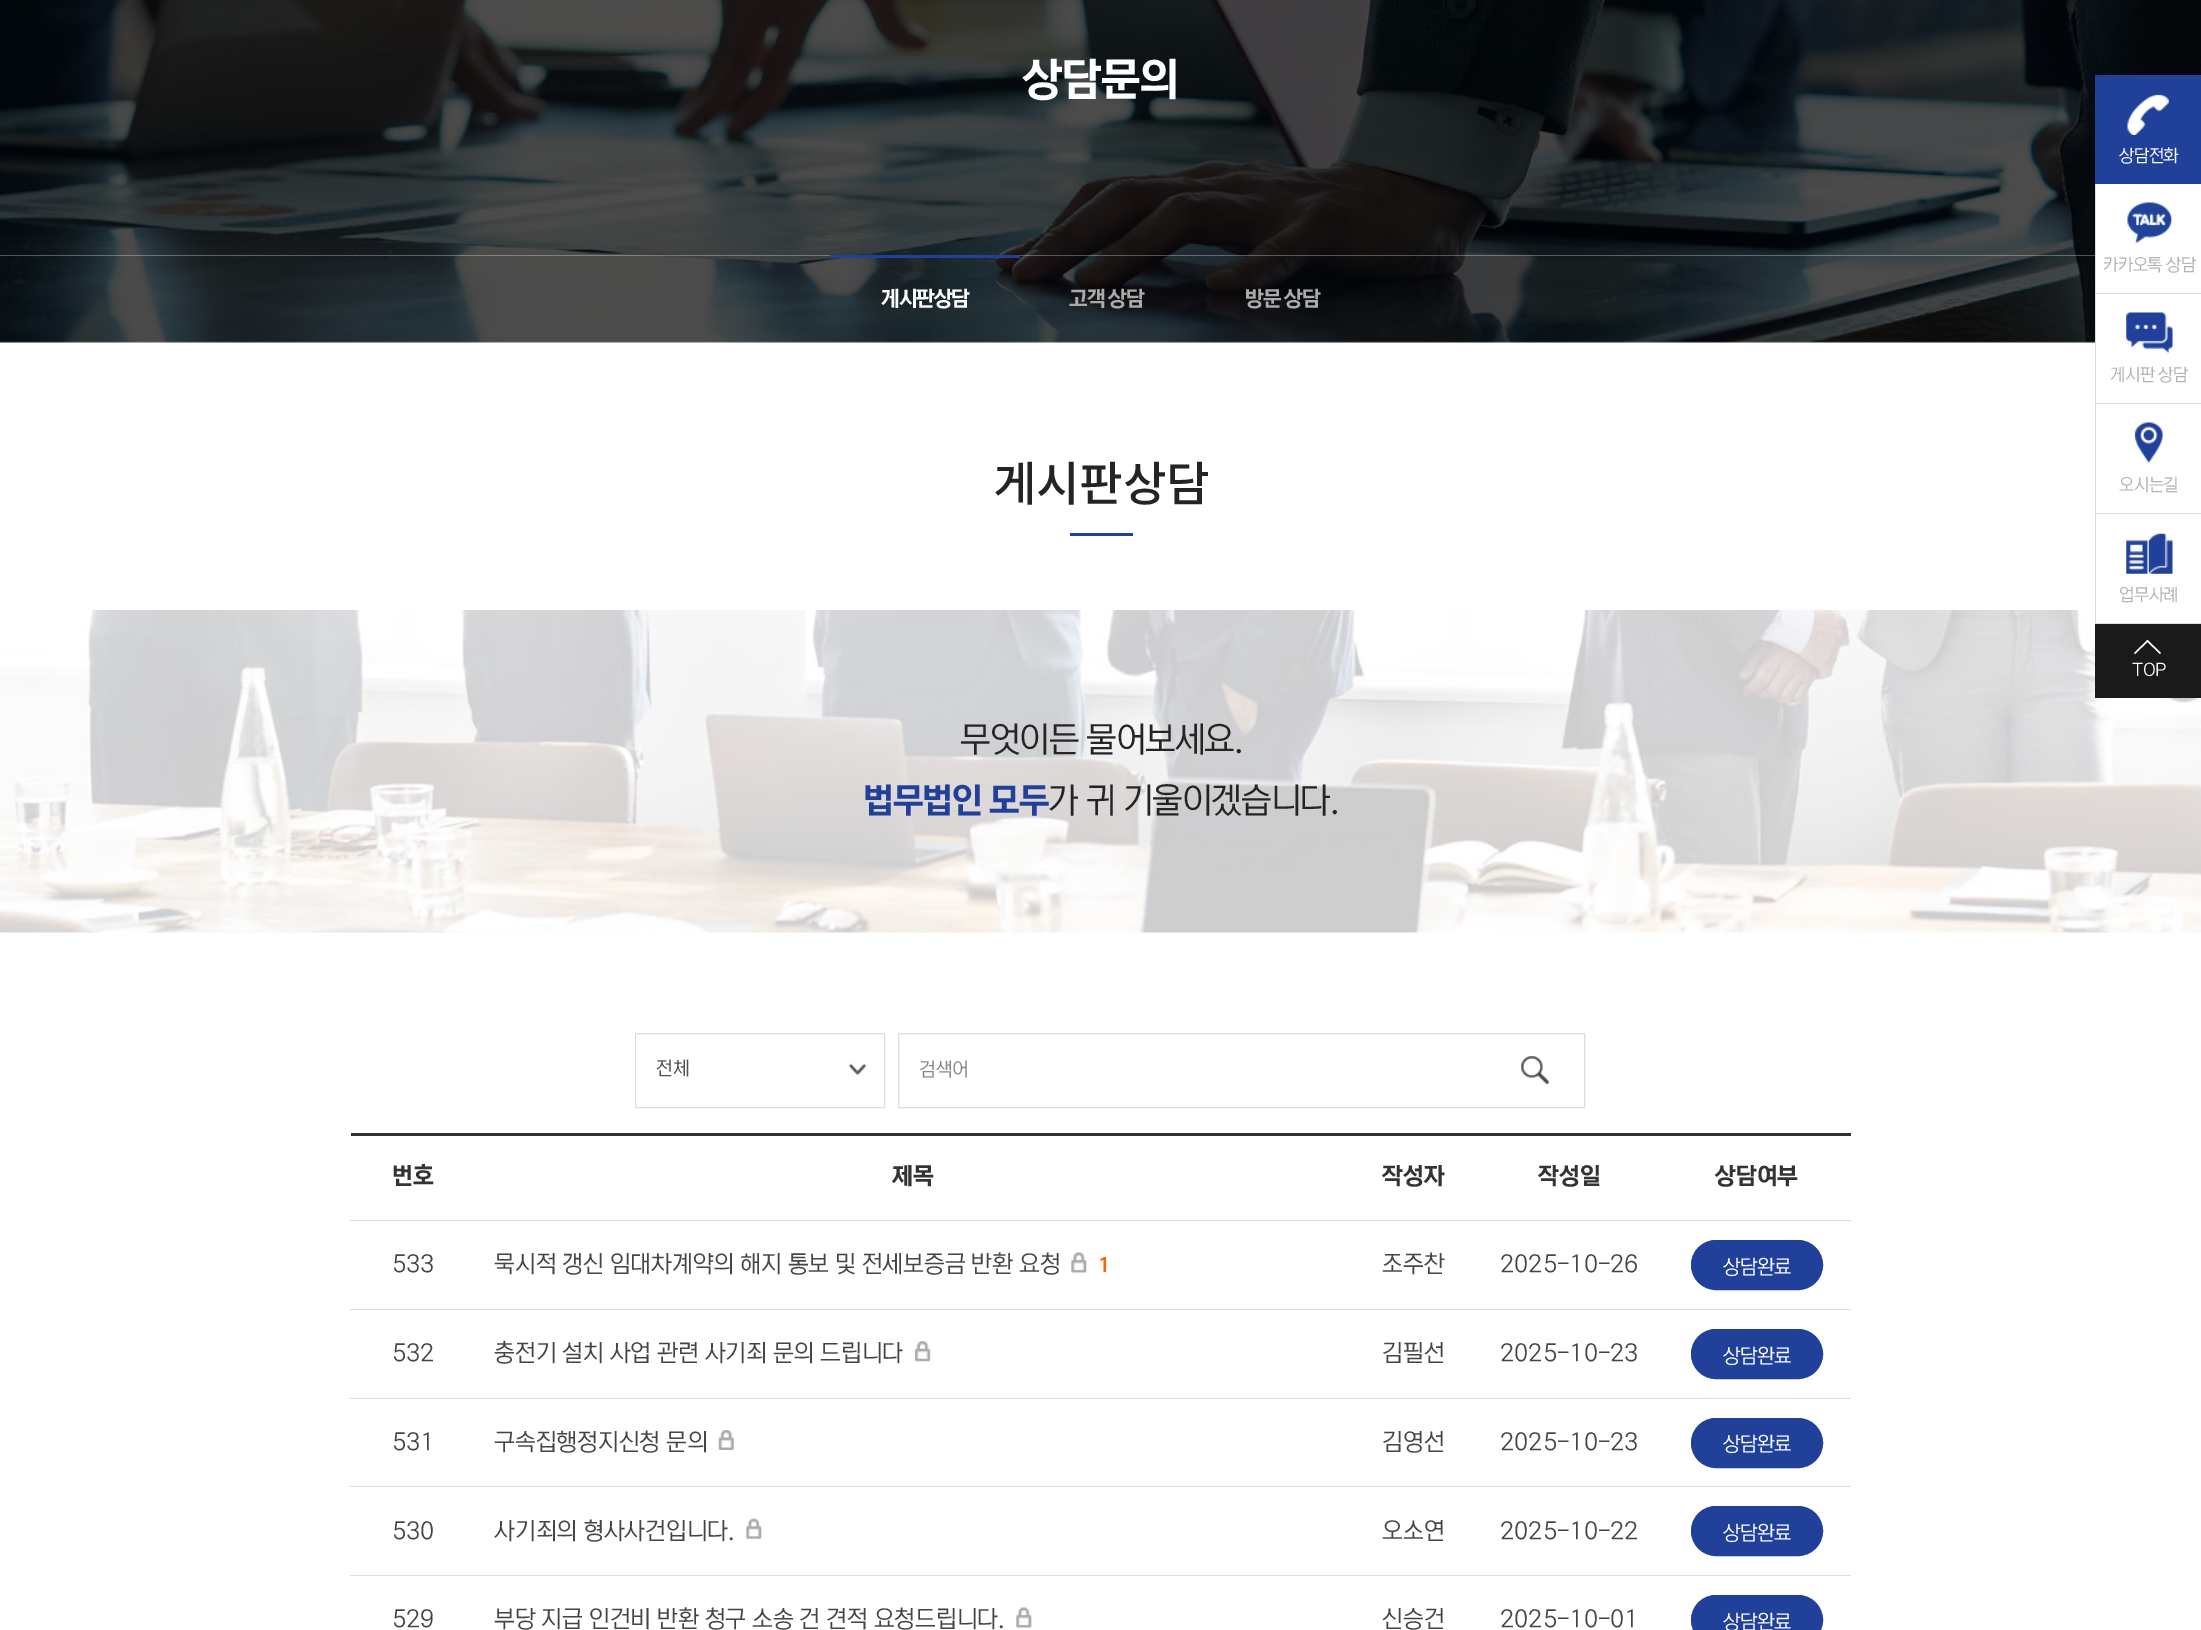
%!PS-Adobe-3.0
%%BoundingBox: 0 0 2201 1630
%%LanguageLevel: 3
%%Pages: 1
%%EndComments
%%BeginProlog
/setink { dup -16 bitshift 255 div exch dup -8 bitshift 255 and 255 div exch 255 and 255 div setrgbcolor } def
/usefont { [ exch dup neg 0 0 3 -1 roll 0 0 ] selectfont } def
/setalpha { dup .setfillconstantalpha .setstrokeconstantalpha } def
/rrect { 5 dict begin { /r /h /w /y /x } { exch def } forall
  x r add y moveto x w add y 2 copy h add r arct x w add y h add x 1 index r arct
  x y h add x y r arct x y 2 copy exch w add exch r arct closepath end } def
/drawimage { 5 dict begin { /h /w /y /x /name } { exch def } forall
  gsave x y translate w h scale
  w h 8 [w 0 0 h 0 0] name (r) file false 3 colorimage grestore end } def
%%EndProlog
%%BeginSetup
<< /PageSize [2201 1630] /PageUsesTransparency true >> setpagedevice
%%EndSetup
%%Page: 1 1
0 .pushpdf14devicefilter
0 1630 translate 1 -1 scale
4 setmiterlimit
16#FFFFFF setink
0 0 2201 1630 rectfill
(img1.raw) 0 0 2201 343 drawimage
/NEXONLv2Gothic-Bold 45 usefont
1023 93 moveto -0.5 0 (상담문의) ashow
0.3 setalpha
0 255 2095 1 rectfill
1 setalpha
16#21409A setink
830 255 190 3 rectfill
/NEXONLv2Gothic-Bold 21.25 usefont
16#FFFFFF setink
881 305 moveto -1 0 (게시판상담) ashow
16#AAAAAA setink
1069 305 moveto -1 0 (고객 상담) ashow
1245 305 moveto -1 0 (방문 상담) ashow
(img7.raw) 0 610 2201 323 drawimage
16#FFFFFF setink
2096 184 105 439 rectfill
16#21409A setink
2095 75 106 109 rectfill
(img2.raw) 2127 94 42 41 drawimage
/NEXONLv2Gothic-Regular 17.5 usefont
16#FFFFFF setink
2119 161 moveto -0.5 0 (상담전화) ashow
16#DDDDDD setink
2095 293 106 1 rectfill
2095 184 1 110 rectfill
(img3.raw) 2127 202 45 41 drawimage
16#B3B3B3 setink
2103 270 moveto -0.5 0 (카카오톡 상담) ashow
16#DDDDDD setink
2095 403 106 1 rectfill
2095 294 1 110 rectfill
(img4.raw) 2126 312 47 41 drawimage
16#B3B3B3 setink
2110 380 moveto -0.5 0 (게시판 상담) ashow
16#DDDDDD setink
2095 513 106 1 rectfill
2095 404 1 110 rectfill
(img5.raw) 2134 422 29 41 drawimage
16#B3B3B3 setink
2119 490 moveto -0.5 0 (오시는길) ashow
16#DDDDDD setink
2095 623 106 1 rectfill
2095 514 1 110 rectfill
(img6.raw) 2126 533 47 41 drawimage
16#B3B3B3 setink
2119 600 moveto -0.5 0 (업무사례) ashow
16#1A1A1A setink
2095 624 106 74 rectfill
16#FFFFFF setink
2134 653 moveto 2147.5 640 lineto 2148.5 641 lineto 2135 654 lineto closepath fill
2146.5 641 moveto 2147.5 640 lineto 2161 653 lineto 2160 654 lineto closepath fill
2132 675 moveto -0.5 0 (TOP) ashow
/NotoSansKR-Medium 47.5 usefont
16#242424 setink
993 501 moveto -0.5 0 (게시판상담) ashow
16#21409A setink
1070 533 63 3 rectfill
/NEXONLv2Gothic-Regular 35 usefont
16#242424 setink
960 750 moveto -1 0 (무엇이든 물어보세요.) ashow
/NEXONLv2Gothic-Bold 35 usefont
16#21409A setink
863 811 moveto -1 0 (법무법인 모두) ashow
/NEXONLv2Gothic-Regular 35 usefont
16#242424 setink
1048 811 moveto -1 0 (가 귀 기울이겠습니다.) ashow
(img8.raw) 848 1063 19 12 drawimage
16#DDDDDD setink
635.5 1033.5 249 74 rectstroke
/NEXONLv2Gothic-Regular 19 usefont
16#505050 setink
656 1074 moveto (전체) show
16#DDDDDD setink
898.5 1033.5 686 74 rectstroke
16#878787 setink
919 1075 moveto (검색어) show
(img9.raw) 1521 1056 28 28 drawimage
16#333333 setink
351 1133 1500 3 rectfill
/NEXONLv2Gothic-Bold 23.75 usefont
[
    [(번호) 392 1183]
    [(제목) 892 1183]
    [(작성자) 1382 1183]
    [(작성일) 1538 1183]
] { aload pop moveto show } forall
16#DDDDDD setink
350 1220 1501 1 rectfill
16#333333 setink
1715 1183 moveto (상담여부) show
/NEXONLv2Gothic-Regular 23.75 usefont
16#454545 setink
392 1271 moveto (533) show
494 1271 moveto (묵시적 갱신 임대차계약의 해지 통보 및 전세보증금 반환 요청) show
(img10.raw) 1071 1252 16 21 drawimage
/NEXONLv2Gothic-Bold 20 usefont
16#FF6000 setink
1098 1271 moveto (1) show
/NEXONLv2Gothic-Regular 23.75 usefont
16#454545 setink
1382 1271 moveto (조주찬) show
1500 1271 moveto (2025-10-26) show
16#DDDDDD setink
350 1309 1501 1 rectfill
16#20409A setink
1691.5 1240.5 131 49 24.5 rrect gsave fill grestore
stroke
/NEXONLv2Gothic-Regular 20 usefont
16#FFFFFF setink
1723 1273 moveto -0.5 0 (상담완료) ashow
/NEXONLv2Gothic-Regular 23.75 usefont
16#454545 setink
392 1360 moveto (532) show
494 1360 moveto (충전기 설치 사업 관련 사기죄 문의 드립니다) show
(img11.raw) 914 1341 17 21 drawimage
1382 1360 moveto (김필선) show
1500 1360 moveto (2025-10-23) show
16#DDDDDD setink
350 1398 1501 1 rectfill
16#20409A setink
1691.5 1329.5 131 49 24.5 rrect gsave fill grestore
stroke
/NEXONLv2Gothic-Regular 20 usefont
16#FFFFFF setink
1723 1362 moveto -0.5 0 (상담완료) ashow
/NEXONLv2Gothic-Regular 23.75 usefont
16#454545 setink
392 1449 moveto (531) show
494 1449 moveto (구속집행정지신청 문의) show
(img12.raw) 718 1430 16 20 drawimage
1382 1449 moveto (김영선) show
1500 1449 moveto (2025-10-23) show
16#DDDDDD setink
350 1486 1501 1 rectfill
16#20409A setink
1691.5 1418.5 131 49 24.5 rrect gsave fill grestore
stroke
/NEXONLv2Gothic-Regular 20 usefont
16#FFFFFF setink
1723 1450 moveto -0.5 0 (상담완료) ashow
/NEXONLv2Gothic-Regular 23.75 usefont
16#454545 setink
392 1538 moveto (530) show
494 1538 moveto (사기죄의 형사사건입니다.) show
(img13.raw) 746 1518 16 21 drawimage
1382 1538 moveto (오소연) show
1500 1538 moveto (2025-10-22) show
16#DDDDDD setink
350 1575 1501 1 rectfill
16#20409A setink
1691.5 1506.5 131 49 24.5 rrect gsave fill grestore
stroke
/NEXONLv2Gothic-Regular 20 usefont
16#FFFFFF setink
1723 1539 moveto -0.5 0 (상담완료) ashow
/NEXONLv2Gothic-Regular 23.75 usefont
16#454545 setink
392 1626 moveto (529) show
494 1626 moveto (부당 지급 인건비 반환 청구 소송 건 견적 요청드립니다.) show
(img14.raw) 1016 1607 16 21 drawimage
1382 1626 moveto (신승건) show
1500 1626 moveto (2025-10-01) show
16#20409A setink
1691.5 1595.5 131 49 24.5 rrect gsave fill grestore
stroke
/NEXONLv2Gothic-Regular 20 usefont
16#FFFFFF setink
1723 1628 moveto -0.5 0 (상담완료) ashow
.poppdf14devicefilter showpage
%%EOF
